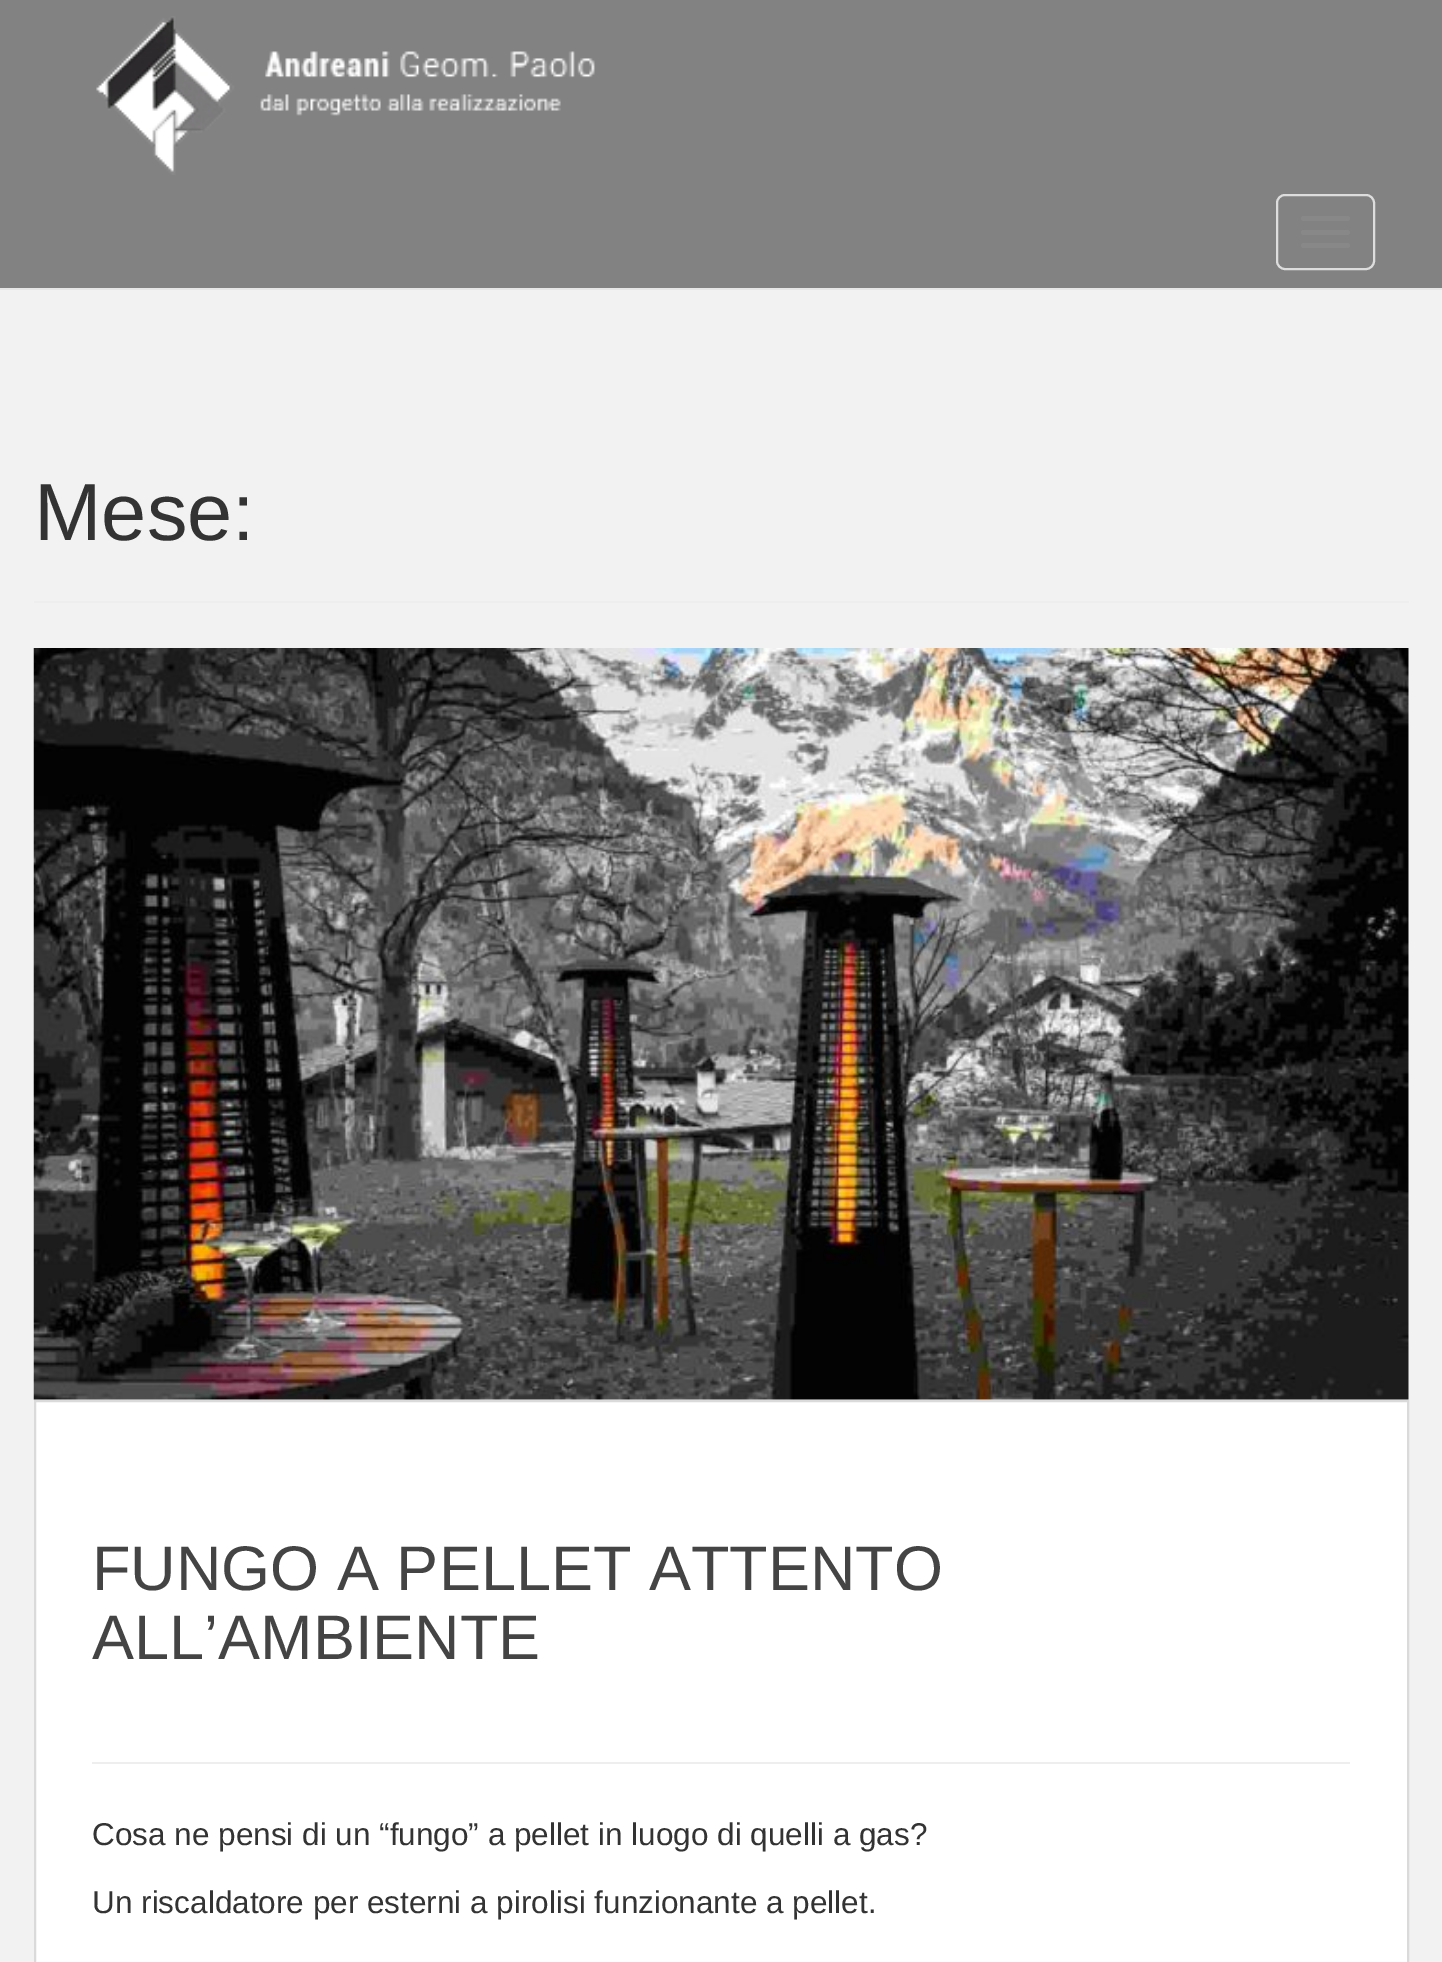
%!PS-Adobe-3.0
%%BoundingBox: 0 0 1442 1962
%%LanguageLevel: 3
%%Pages: 1
%%EndComments
%%BeginProlog
/setink { dup -16 bitshift 255 div exch dup -8 bitshift 255 and 255 div exch 255 and 255 div setrgbcolor } def
/usefont { [ exch dup neg 0 0 3 -1 roll 0 0 ] selectfont } def
/rrect { 5 dict begin { /r /h /w /y /x } { exch def } forall
  x r add y moveto x w add y 2 copy h add r arct x w add y h add x 1 index r arct
  x y h add x y r arct x y 2 copy exch w add exch r arct closepath end } def
/drawimage { 5 dict begin { /h /w /y /x /name } { exch def } forall
  gsave x y translate w h scale
  w h 8 [w 0 0 h 0 0] name (r) file false 3 colorimage grestore end } def
%%EndProlog
%%BeginSetup
<< /PageSize [1442 1962] >> setpagedevice
%%EndSetup
%%Page: 1 1
0 1962 translate 1 -1 scale
4 setmiterlimit
16#F2F2F2 setink
0 0 1442 1962 rectfill
16#828282 setink
0 0 1442 288 rectfill
16#E7E7E7 setink
0 288 1442 2 rectfill
(img1.raw) 96 16 499 159 drawimage
16#DDDDDD setink
2 setlinewidth
1277 195 97 74 8 rrect stroke
16#888888 setink
1301 216 49 5 2.5 rrect fill
1301 230 49 5 2.5 rrect fill
1301 243 49 5 2.5 rrect fill
16#EEEEEE setink
34 601 1375 2 rectfill
/LiberationSans-Regular 81 usefont
16#333333 setink
34 540 moveto (Mese:) show
(img2.raw) 33 648 1376 752 drawimage
16#FFFFFF setink
35 1401 moveto 1408 1401 lineto 1408 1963 lineto 35 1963 lineto closepath gsave fill grestore
16#DADADA setink
stroke
16#EEEEEE setink
92 1762 1258 2 rectfill
/LiberationSans-Regular 63 usefont
16#444444 setink
92 1590 moveto (FUNGO A PELLET ATTENTO) show
92 1659 moveto (ALL’AMBIENTE) show
/LiberationSans-Regular 31.5 usefont
16#333333 setink
92 1845 moveto (Cosa ne pensi di un “fungo” a pellet in luogo di quelli a gas?) show
92 1913 moveto (Un riscaldatore per esterni a pirolisi funzionante a pellet.) show
showpage
%%EOF
